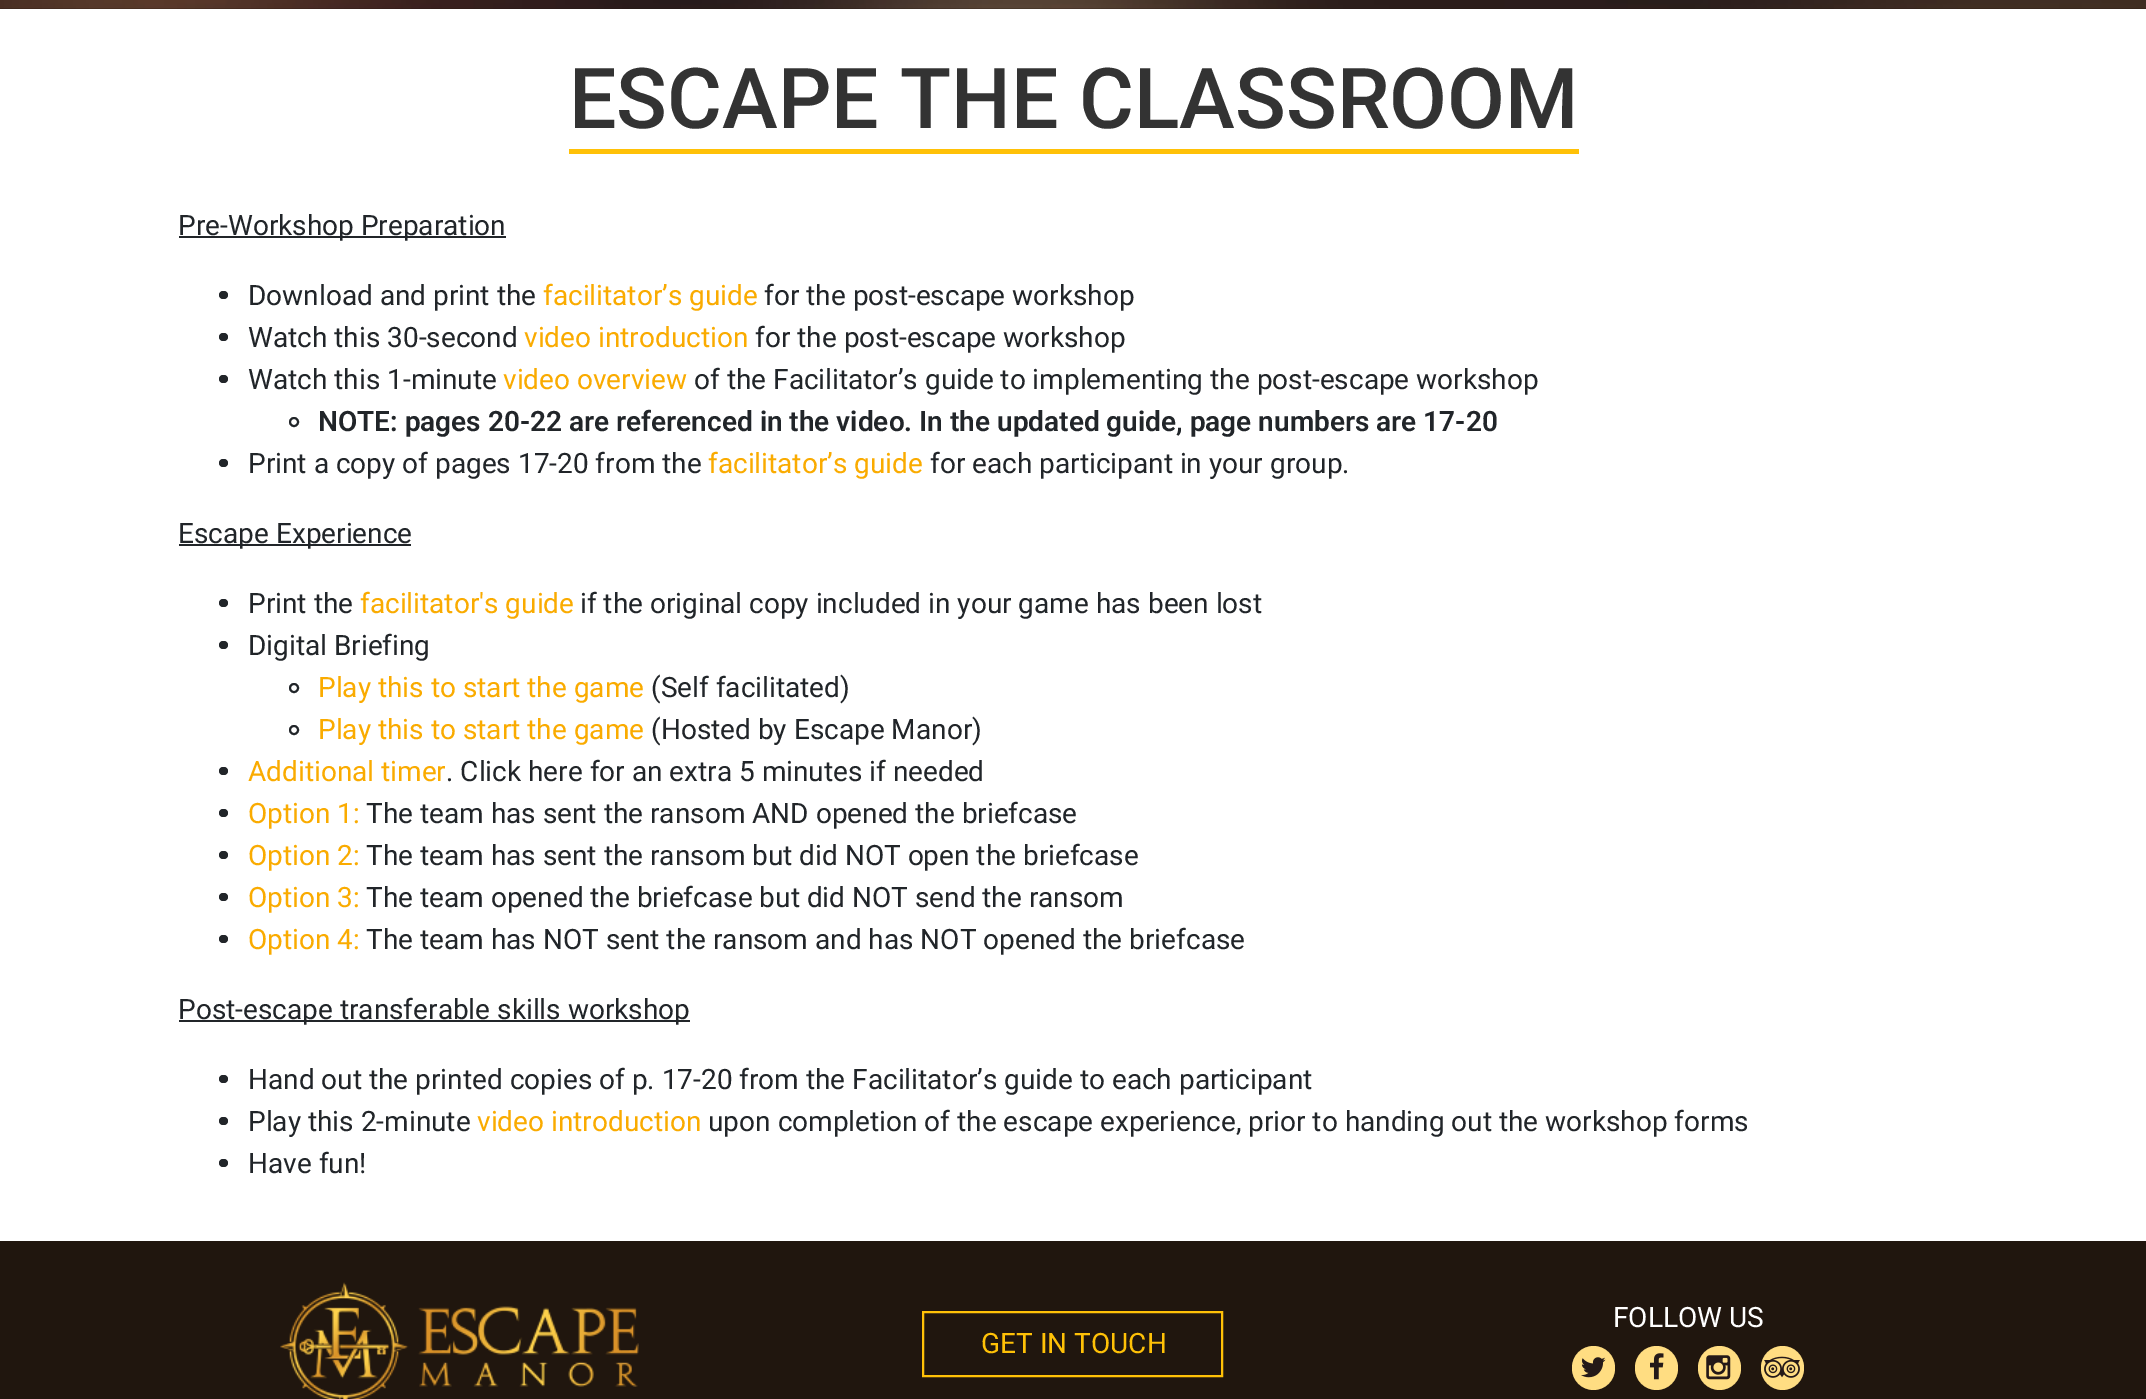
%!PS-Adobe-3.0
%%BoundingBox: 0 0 2146 1399
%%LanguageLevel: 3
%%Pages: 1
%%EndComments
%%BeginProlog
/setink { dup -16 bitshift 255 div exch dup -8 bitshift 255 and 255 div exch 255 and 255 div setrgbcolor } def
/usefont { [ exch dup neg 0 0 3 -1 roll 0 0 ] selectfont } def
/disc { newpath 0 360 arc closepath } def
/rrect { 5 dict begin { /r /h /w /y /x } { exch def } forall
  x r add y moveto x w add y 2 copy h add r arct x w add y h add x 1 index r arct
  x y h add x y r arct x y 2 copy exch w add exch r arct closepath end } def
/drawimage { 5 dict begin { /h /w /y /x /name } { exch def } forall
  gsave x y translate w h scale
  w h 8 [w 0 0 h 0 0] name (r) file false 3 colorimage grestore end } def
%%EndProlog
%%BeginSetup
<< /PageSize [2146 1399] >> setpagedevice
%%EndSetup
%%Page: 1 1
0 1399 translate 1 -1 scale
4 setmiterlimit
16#20160E setink
0 0 2146 1399 rectfill
(img1.raw) 0 0 2146 9 drawimage
16#FFFFFF setink
0 9 2146 1232 rectfill
/Roboto-Medium 84 usefont
16#333333 setink
569 128 moveto (ESCAPE THE CLASSROOM) show
16#FFC107 setink
569 149 1010 5 rectfill
16#212529 setink
179 236 327 2 rectfill
/Roboto-Regular 28 usefont
178 235 moveto (Pre-Workshop Preparation) show
219 291 9 8 4 rrect fill
248 305 moveto (Download and print the) show
16#FAAB00 setink
543 305 moveto (facilitator’s guide) show
16#212529 setink
764 305 moveto (for the post-escape workshop) show
219 333 9 8 4 rrect fill
248 347 moveto (Watch this 30-second) show
16#FAAB00 setink
524 347 moveto (video introduction) show
16#212529 setink
755 347 moveto (for the post-escape workshop) show
219 375 9 8 4 rrect fill
248 389 moveto (Watch this 1-minute) show
16#FAAB00 setink
503 389 moveto (video overview) show
16#212529 setink
694 389 moveto (of the Facilitator’s guide to implementing the post-escape workshop) show
2 setlinewidth
294 422 4 disc stroke
/Roboto-SemiBold 28 usefont
318 431 moveto (NOTE: pages 20-22 are referenced in the video. In the updated guide, page numbers are 17-20) show
219 459 9 8 4 rrect fill
/Roboto-Regular 28 usefont
248 473 moveto (Print a copy of pages 17-20 from the) show
16#FAAB00 setink
708 473 moveto (facilitator’s guide) show
16#212529 setink
930 473 moveto (for each participant in your group.) show
179 544 232 2 rectfill
178 543 moveto (Escape Experience) show
219 599 9 8 4 rrect fill
248 613 moveto (Print the) show
16#FAAB00 setink
360 613 moveto (facilitator's guide) show
16#212529 setink
580 613 moveto (if the original copy included in your game has been lost) show
219 641 9 8 4 rrect fill
248 655 moveto (Digital Briefing) show
294 688 4 disc stroke
16#FAAB00 setink
318 697 moveto (Play this to start the game) show
16#212529 setink
651 697 moveto (\(Self facilitated\)) show
294 730 4 disc stroke
16#FAAB00 setink
318 739 moveto (Play this to start the game) show
16#212529 setink
651 739 moveto (\(Hosted by Escape Manor\)) show
219 767 9 8 4 rrect fill
16#FAAB00 setink
248 781 moveto (Additional timer) show
16#212529 setink
446 781 moveto (. Click here for an extra 5 minutes if needed) show
219 809 9 8 4 rrect fill
16#FAAB00 setink
248 823 moveto (Option 1:) show
16#212529 setink
366 823 moveto (The team has sent the ransom AND opened the briefcase) show
219 851 9 8 4 rrect fill
16#FAAB00 setink
248 865 moveto (Option 2:) show
16#212529 setink
366 865 moveto (The team has sent the ransom but did NOT open the briefcase) show
219 893 9 8 4 rrect fill
16#FAAB00 setink
248 907 moveto (Option 3:) show
16#212529 setink
366 907 moveto (The team opened the briefcase but did NOT send the ransom) show
219 935 9 8 4 rrect fill
16#FAAB00 setink
248 949 moveto (Option 4:) show
16#212529 setink
366 949 moveto (The team has NOT sent the ransom and has NOT opened the briefcase) show
179 1020 511 2 rectfill
178 1019 moveto (Post-escape transferable skills workshop) show
219 1075 9 8 4 rrect fill
248 1089 moveto (Hand out the printed copies of p. 17-20 from the Facilitator’s guide to each participant) show
219 1117 9 8 4 rrect fill
248 1131 moveto (Play this 2-minute) show
16#FAAB00 setink
477 1131 moveto (video introduction) show
16#212529 setink
708 1131 moveto (upon completion of the escape experience, prior to handing out the workshop forms) show
219 1159 9 8 4 rrect fill
248 1173 moveto (Have fun!) show
(img2.raw) 280 1282 359 117 drawimage
16#FFFFFF setink
1613 1327 moveto (FOLLOW US) show
16#FFDD82 setink
1572 1346 43 44 21.5 rrect fill
(img3.raw) 1581 1357 25 21 drawimage
1635 1346 43 44 21.5 rrect fill
(img4.raw) 1650 1353 14 27 drawimage
1698 1346 43 44 21.5 rrect fill
(img5.raw) 1706 1355 25 25 drawimage
1761 1346 43 44 21.5 rrect fill
(img6.raw) 1764 1356 36 22 drawimage
16#FFC107 setink
923 1312 299 64 rectstroke
981 1353 moveto (GET IN TOUCH) show
showpage
%%EOF
